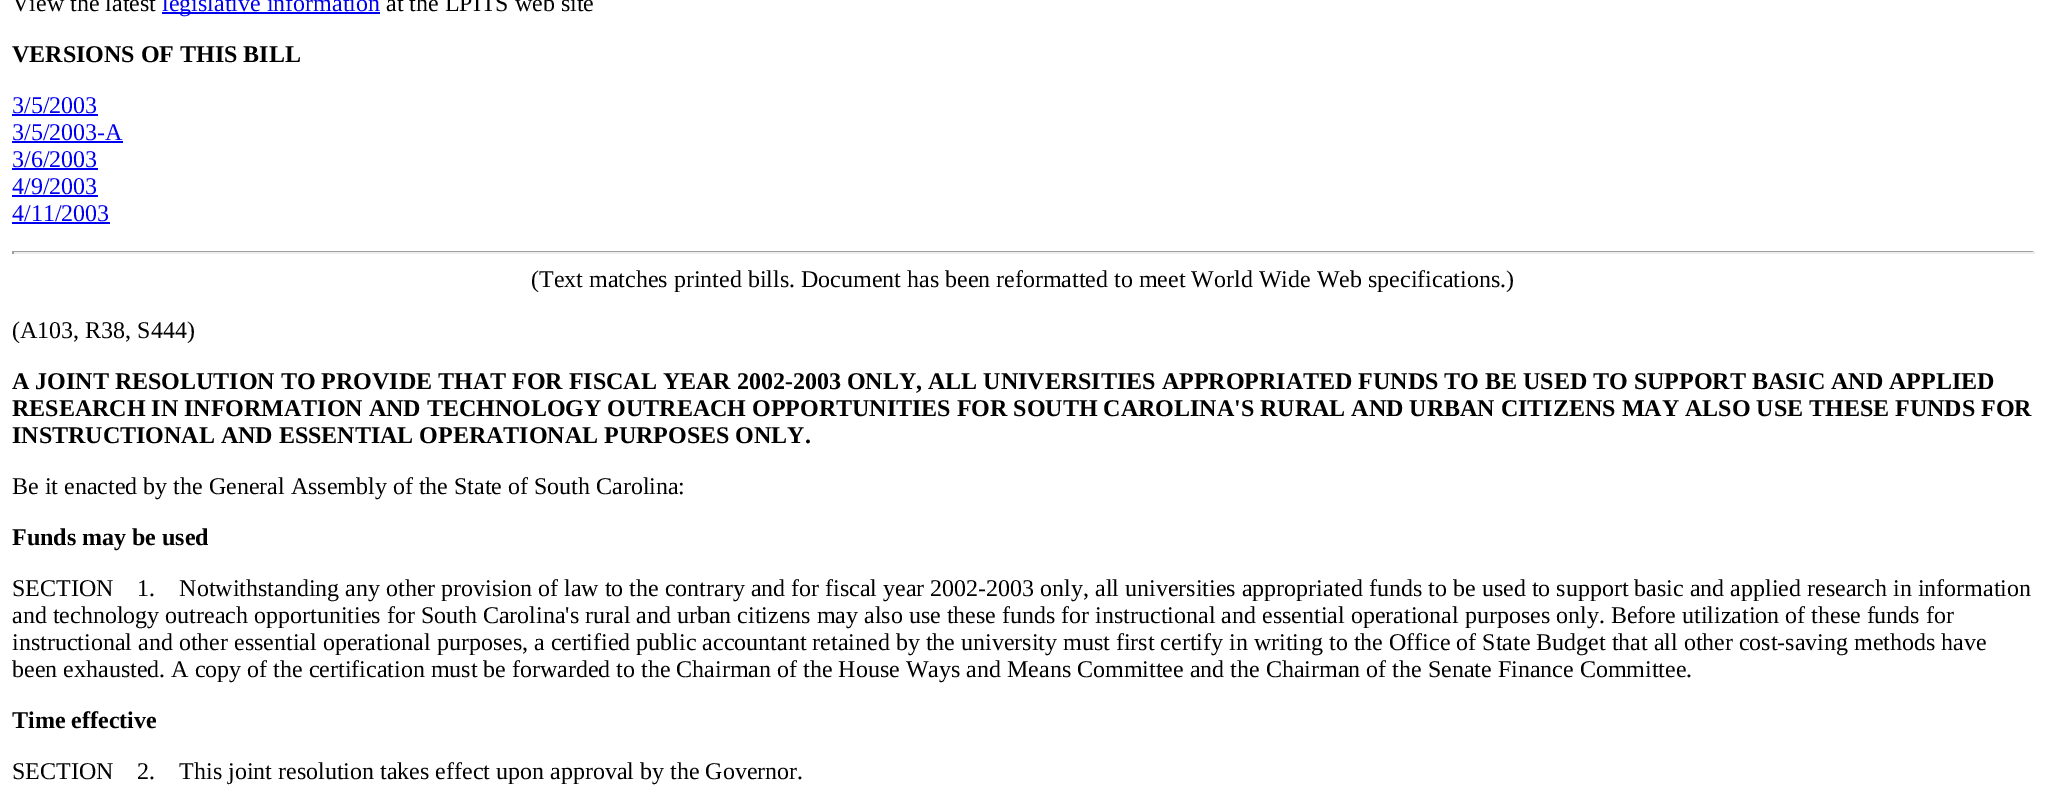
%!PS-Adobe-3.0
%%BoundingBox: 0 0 2046 791
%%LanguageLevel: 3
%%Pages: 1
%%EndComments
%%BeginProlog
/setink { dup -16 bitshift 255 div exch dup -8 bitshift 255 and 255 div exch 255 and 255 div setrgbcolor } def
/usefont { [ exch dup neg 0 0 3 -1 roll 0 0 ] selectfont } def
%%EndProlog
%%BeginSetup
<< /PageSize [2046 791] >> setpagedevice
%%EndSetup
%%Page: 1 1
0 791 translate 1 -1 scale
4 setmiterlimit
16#FFFFFF setink
0 0 2046 791 rectfill
/LiberationSerif-Regular 24 usefont
16#000000 setink
12 11 moveto (View the latest) show
16#0000EE setink
162 12 218 2 rectfill
162 11 moveto (legislative information) show
16#000000 setink
386 11 moveto (at the LPITS web site) show
/LiberationSerif-Bold 24 usefont
12 62 moveto (VERSIONS OF THIS BILL) show
/LiberationSerif-Regular 24 usefont
16#0000EE setink
12 113 moveto (3/5/2003) show
12 114 86 2 rectfill
12 140 moveto (3/5/2003-A) show
12 141 111 2 rectfill
12 167 moveto (3/6/2003) show
12 168 86 2 rectfill
12 194 moveto (4/9/2003) show
12 195 86 2 rectfill
12 221 moveto (4/11/2003) show
[
    [12 222 98 2 16#0000EE]
    [12 251 2022 1 16#9F9F9F]
    [2033 251 2 3 16#EEEEEE]
    [12 252 2022 2 16#EEEEEE]
    [12 251 2 3 16#9F9F9F]
] { aload pop setink rectfill } forall
16#000000 setink
531 287 moveto (\(Text matches printed bills. Document has been reformatted to meet World Wide Web specifications.\)) show
12 338 moveto (\(A103, R38, S444\)) show
/LiberationSerif-Bold 24 usefont
[
    [(A JOINT RESOLUTION TO PROVIDE THAT FOR FISCAL YEAR 2002-2003 ONLY, ALL UNIVERSITIES APPROPRIATED FUNDS TO BE USED TO SUPPORT BASIC AND APPLIED) 12 389]
    [(RESEARCH IN INFORMATION AND TECHNOLOGY OUTREACH OPPORTUNITIES FOR SOUTH CAROLINA'S RURAL AND URBAN CITIZENS MAY ALSO USE THESE FUNDS FOR) 12 416]
    [(INSTRUCTIONAL AND ESSENTIAL OPERATIONAL PURPOSES ONLY.) 12 443]
] { aload pop moveto show } forall
/LiberationSerif-Regular 24 usefont
12 494 moveto (Be it enacted by the General Assembly of the State of South Carolina:) show
/LiberationSerif-Bold 24 usefont
12 545 moveto (Funds may be used) show
/LiberationSerif-Regular 24 usefont
[
    [(SECTION    1.    Notwithstanding any other provision of law to the contrary and for fiscal year 2002-2003 only, all universities appropriated funds to be used to support basic and applied research in information) 12 596]
    [(and technology outreach opportunities for South Carolina's rural and urban citizens may also use these funds for instructional and essential operational purposes only. Before utilization of these funds for) 12 623]
    [(instructional and other essential operational purposes, a certified public accountant retained by the university must first certify in writing to the Office of State Budget that all other cost-saving methods have) 12 650]
    [(been exhausted. A copy of the certification must be forwarded to the Chairman of the House Ways and Means Committee and the Chairman of the Senate Finance Committee.) 12 677]
] { aload pop moveto show } forall
/LiberationSerif-Bold 24 usefont
12 728 moveto (Time effective) show
/LiberationSerif-Regular 24 usefont
12 779 moveto (SECTION    2.    This joint resolution takes effect upon approval by the Governor.) show
showpage
%%EOF
